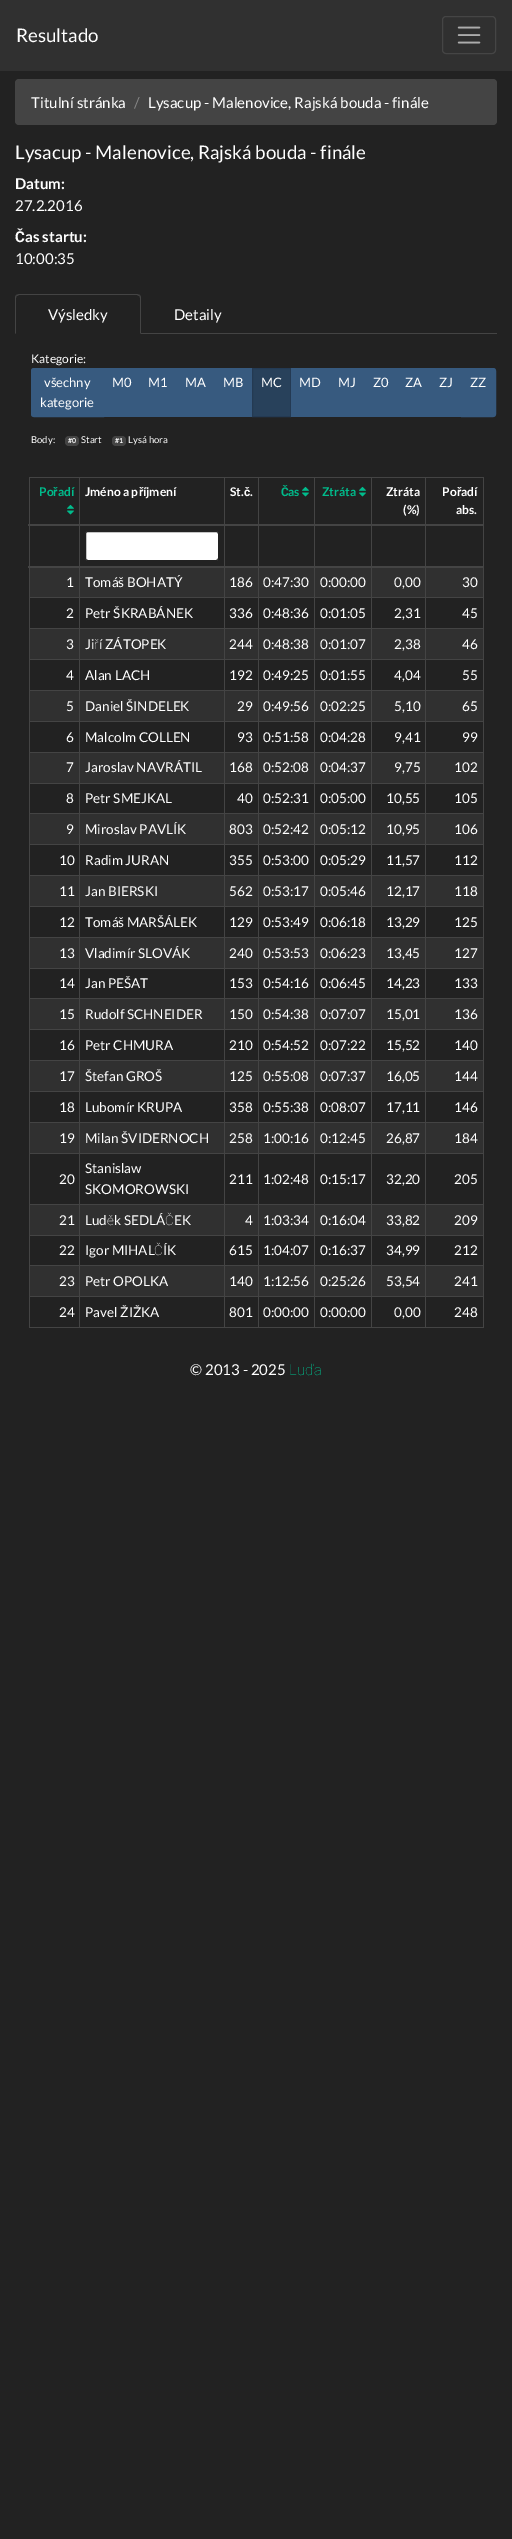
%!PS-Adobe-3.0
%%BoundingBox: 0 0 512 2539
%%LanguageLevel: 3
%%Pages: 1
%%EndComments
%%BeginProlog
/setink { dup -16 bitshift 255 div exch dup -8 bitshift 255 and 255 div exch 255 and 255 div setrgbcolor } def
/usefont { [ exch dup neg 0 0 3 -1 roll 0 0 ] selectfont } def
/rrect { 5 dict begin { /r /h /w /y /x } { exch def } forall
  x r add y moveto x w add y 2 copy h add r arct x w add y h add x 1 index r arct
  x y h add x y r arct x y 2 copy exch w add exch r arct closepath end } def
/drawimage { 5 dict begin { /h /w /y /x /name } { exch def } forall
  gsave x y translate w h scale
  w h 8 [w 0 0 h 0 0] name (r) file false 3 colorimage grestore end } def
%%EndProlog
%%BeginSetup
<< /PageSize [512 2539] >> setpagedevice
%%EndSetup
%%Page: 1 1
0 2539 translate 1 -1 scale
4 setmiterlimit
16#222222 setink
0 0 512 2539 rectfill
16#303030 setink
0 0 512 71 rectfill
/Lato-Regular 18.75 usefont
16#FFFFFF setink
16 42 moveto (Resultado) show
16#454545 setink
442.5 16.5 53 37 3.5 rrect stroke
(img1.raw) 457 26 24 18 drawimage
16#444444 setink
15 79 482 46 4 rrect fill
/Lato-Regular 15 usefont
16#FFFFFF setink
31 108 moveto (Titulní stránka) show
16#888888 setink
134 108 moveto (/) show
16#FFFFFF setink
148 108 moveto (Lysacup - Malenovice, Rajská bouda - finále) show
/Lato-Regular 18.75 usefont
15 159 moveto (Lysacup - Malenovice, Rajská bouda - finále) show
/Lato-Bold 15 usefont
15 189 moveto (Datum:) show
/Lato-Regular 15 usefont
15 211 moveto (27.2.2016) show
/Roboto-Bold 15 usefont
15 242 moveto (Č) show
/Lato-Bold 15 usefont
25 242 moveto (as startu:) show
/Lato-Regular 15 usefont
15 264 moveto (10:00:35) show
16#444444 setink
141 333 356 1 rectfill
19 294 moveto 16 295 lineto 17 296 lineto 19 295 lineto 137 295 lineto 139 296 lineto 140 295 lineto 137 294 lineto closepath fill
141 334 moveto 141 298 lineto 141 297 140.5 296 140 295 curveto 139 296 lineto 140 296 140 297 140 298 curveto 140 333 lineto closepath fill
15 334 moveto 16 333 lineto 16 298 lineto 16 297 16 296 17 296 curveto 16 295 lineto 15.5 296 15 297 15 298 curveto closepath fill
16#FFFFFF setink
48 320 moveto (Výsledky) show
174 320 moveto (Detaily) show
/Lato-Regular 12 usefont
31 363 moveto (Kategorie:) show
16#375A7F setink
34 368.5 moveto 103.5 368.5 lineto 103.5 416.5 lineto 34 416.5 lineto 32.5 416.5 31.5 415.5 31.5 414 curveto 31.5 371 lineto 31.5 369.5 32.5 368.5 34 368.5 curveto closepath gsave fill grestore
stroke
/Lato-Regular 13 usefont
16#FFFFFF setink
44 387 moveto (všechny) show
40 407 moveto (kategorie) show
16#375A7F setink
104 368 148 49 rectfill
16#FFFFFF setink
[
    [(M0) 112 387]
    [(M1) 148 387]
    [(MA) 185 387]
    [(MB) 223 387]
] { aload pop moveto show } forall
16#28415B setink
252.5 368.5 moveto 290.5 368.5 lineto 290.5 416.5 lineto 252.5 416.5 lineto closepath gsave fill grestore
16#243A53 setink
stroke
16#FFFFFF setink
261 387 moveto (MC) show
16#375A7F setink
291 368 170 49 rectfill
16#FFFFFF setink
[
    [(MD) 299 387]
    [(MJ) 338 387]
    [(Z0) 373 387]
    [(ZA) 405 387]
    [(ZJ) 439 387]
] { aload pop moveto show } forall
16#375A7F setink
461.5 368.5 moveto 493 368.5 lineto 494.5 368.5 495.5 369.5 495.5 371 curveto 495.5 414 lineto 495.5 415.5 494.5 416.5 493 416.5 curveto 461.5 416.5 lineto closepath gsave fill grestore
stroke
16#FFFFFF setink
470 387 moveto (ZZ) show
/Lato-Regular 9.5 usefont
31 443 moveto (Body:) show
16#444444 setink
65 436 14 10 4 rrect fill
/Lato-Bold 7 usefont
16#FFFFFF setink
68 443 moveto (#0) show
/Lato-Regular 9.5 usefont
81 443 moveto (Start) show
16#444444 setink
112 436 14 10 4 rrect fill
/Lato-Bold 7 usefont
16#FFFFFF setink
115 443 moveto (#1) show
/Lato-Regular 9.5 usefont
128 443 moveto (Lysá hora) show
[
    [29 477 455 1 16#444444]
    [483 477 1 851 16#444444]
    [29 1327 455 1 16#444444]
    [29 477 1 851 16#444444]
] { aload pop setink rectfill } forall
/Lato-Bold 12 usefont
16#00BC8C setink
39 496 moveto (Po) show
/Roboto-Bold 12 usefont
53 496 moveto (ř) show
/Lato-Bold 12 usefont
58 496 moveto (adí) show
(img2.raw) 67 504 7 11 drawimage
16#FFFFFF setink
85 496 moveto (Jméno a p) show
/Roboto-Bold 12 usefont
139 496 moveto (ř) show
/Lato-Bold 12 usefont
143 496 moveto (íjmení) show
230 496 moveto (St.) show
/Roboto-Bold 12 usefont
244 496 moveto (č) show
/Lato-Bold 12 usefont
250 496 moveto (.) show
/Roboto-Bold 12 usefont
16#00BC8C setink
281 496 moveto (Č) show
/Lato-Bold 12 usefont
288 496 moveto (as) show
(img2.raw) 302 486 7 11 drawimage
322 496 moveto (Ztráta) show
(img2.raw) 359 486 7 11 drawimage
16#FFFFFF setink
386 496 moveto (Ztráta) show
403 514 moveto (\(%\)) show
[
    [30 568 453 29 16#303030]
    [425 597 59 1 16#444444]
    [425 628 59 1 16#444444]
    [30 629 453 30 16#303030]
    [425 659 59 1 16#444444]
    [425 690 59 1 16#444444]
    [30 691 453 30 16#303030]
    [425 721 59 1 16#444444]
    [425 752 59 1 16#444444]
    [30 753 453 30 16#303030]
    [425 783 59 1 16#444444]
    [425 813 59 1 16#444444]
    [30 814 453 30 16#303030]
    [425 844 59 1 16#444444]
    [425 875 59 1 16#444444]
    [30 876 453 30 16#303030]
    [425 906 59 1 16#444444]
    [425 937 59 1 16#444444]
    [30 938 453 30 16#303030]
    [425 968 59 1 16#444444]
    [425 998 59 1 16#444444]
    [30 999 453 30 16#303030]
    [425 1029 59 1 16#444444]
    [425 1060 59 1 16#444444]
    [30 1061 453 30 16#303030]
    [425 1091 59 1 16#444444]
    [425 1122 59 1 16#444444]
    [30 1123 453 30 16#303030]
    [425 1153 59 1 16#444444]
    [425 1204 59 1 16#444444]
    [30 1205 453 30 16#303030]
    [425 1235 59 1 16#444444]
    [425 1265 59 1 16#444444]
    [30 1266 453 30 16#303030]
    [425 1296 59 1 16#444444]
    [425 1296 1 32 16#444444]
    [371 1296 55 1 16#444444]
    [425 1265 1 32 16#444444]
    [371 1265 55 1 16#444444]
    [425 1235 1 31 16#444444]
    [371 1235 55 1 16#444444]
    [425 1204 1 32 16#444444]
    [371 1204 55 1 16#444444]
    [425 1153 1 52 16#444444]
    [371 1153 55 1 16#444444]
    [425 1122 1 32 16#444444]
    [371 1122 55 1 16#444444]
    [425 1091 1 32 16#444444]
    [371 1091 55 1 16#444444]
    [425 1060 1 32 16#444444]
    [371 1060 55 1 16#444444]
    [425 1029 1 32 16#444444]
    [371 1029 55 1 16#444444]
    [425 998 1 32 16#444444]
    [371 998 55 1 16#444444]
    [425 968 1 31 16#444444]
    [371 968 55 1 16#444444]
    [425 937 1 32 16#444444]
    [371 937 55 1 16#444444]
    [425 906 1 32 16#444444]
    [371 906 55 1 16#444444]
    [425 875 1 32 16#444444]
    [371 875 55 1 16#444444]
    [425 844 1 32 16#444444]
    [371 844 55 1 16#444444]
    [425 813 1 32 16#444444]
    [371 813 55 1 16#444444]
    [425 783 1 31 16#444444]
    [371 783 55 1 16#444444]
    [425 752 1 32 16#444444]
    [371 752 55 1 16#444444]
    [425 721 1 32 16#444444]
    [371 721 55 1 16#444444]
    [425 690 1 32 16#444444]
    [371 690 55 1 16#444444]
    [425 659 1 32 16#444444]
    [371 659 55 1 16#444444]
    [425 628 1 32 16#444444]
    [371 628 55 1 16#444444]
    [425 597 1 32 16#444444]
    [371 597 55 1 16#444444]
    [371 1296 1 32 16#444444]
    [314 1296 58 1 16#444444]
    [371 1265 1 32 16#444444]
    [314 1265 58 1 16#444444]
    [371 1235 1 31 16#444444]
    [314 1235 58 1 16#444444]
    [371 1204 1 32 16#444444]
    [314 1204 58 1 16#444444]
    [371 1153 1 52 16#444444]
    [314 1153 58 1 16#444444]
    [371 1122 1 32 16#444444]
    [314 1122 58 1 16#444444]
    [371 1091 1 32 16#444444]
    [314 1091 58 1 16#444444]
    [371 1060 1 32 16#444444]
    [314 1060 58 1 16#444444]
    [371 1029 1 32 16#444444]
    [314 1029 58 1 16#444444]
    [371 998 1 32 16#444444]
    [314 998 58 1 16#444444]
    [371 968 1 31 16#444444]
    [314 968 58 1 16#444444]
    [371 937 1 32 16#444444]
    [314 937 58 1 16#444444]
    [371 906 1 32 16#444444]
    [314 906 58 1 16#444444]
    [371 875 1 32 16#444444]
    [314 875 58 1 16#444444]
    [371 844 1 32 16#444444]
    [314 844 58 1 16#444444]
    [371 813 1 32 16#444444]
    [314 813 58 1 16#444444]
    [371 783 1 31 16#444444]
    [314 783 58 1 16#444444]
    [371 752 1 32 16#444444]
    [314 752 58 1 16#444444]
    [371 721 1 32 16#444444]
    [314 721 58 1 16#444444]
    [371 690 1 32 16#444444]
    [314 690 58 1 16#444444]
    [371 659 1 32 16#444444]
    [314 659 58 1 16#444444]
    [371 628 1 32 16#444444]
    [314 628 58 1 16#444444]
    [371 597 1 32 16#444444]
    [314 597 58 1 16#444444]
    [314 1296 1 32 16#444444]
    [258 1296 57 1 16#444444]
    [314 1265 1 32 16#444444]
    [258 1265 57 1 16#444444]
    [314 1235 1 31 16#444444]
    [258 1235 57 1 16#444444]
    [314 1204 1 32 16#444444]
    [258 1204 57 1 16#444444]
    [314 1153 1 52 16#444444]
    [258 1153 57 1 16#444444]
    [314 1122 1 32 16#444444]
    [258 1122 57 1 16#444444]
    [314 1091 1 32 16#444444]
    [258 1091 57 1 16#444444]
    [314 1060 1 32 16#444444]
    [258 1060 57 1 16#444444]
    [314 1029 1 32 16#444444]
    [258 1029 57 1 16#444444]
    [314 998 1 32 16#444444]
    [258 998 57 1 16#444444]
    [314 968 1 31 16#444444]
    [258 968 57 1 16#444444]
    [314 937 1 32 16#444444]
    [258 937 57 1 16#444444]
    [314 906 1 32 16#444444]
    [258 906 57 1 16#444444]
    [314 875 1 32 16#444444]
    [258 875 57 1 16#444444]
    [314 844 1 32 16#444444]
    [258 844 57 1 16#444444]
    [314 813 1 32 16#444444]
    [258 813 57 1 16#444444]
    [314 783 1 31 16#444444]
    [258 783 57 1 16#444444]
    [314 752 1 32 16#444444]
    [258 752 57 1 16#444444]
    [314 721 1 32 16#444444]
    [258 721 57 1 16#444444]
    [314 690 1 32 16#444444]
    [258 690 57 1 16#444444]
    [314 659 1 32 16#444444]
    [258 659 57 1 16#444444]
    [314 628 1 32 16#444444]
    [258 628 57 1 16#444444]
    [314 597 1 32 16#444444]
    [258 597 57 1 16#444444]
    [258 1296 1 32 16#444444]
    [224 1296 35 1 16#444444]
    [258 1265 1 32 16#444444]
    [224 1265 35 1 16#444444]
    [258 1235 1 31 16#444444]
    [224 1235 35 1 16#444444]
    [258 1204 1 32 16#444444]
    [224 1204 35 1 16#444444]
    [258 1153 1 52 16#444444]
    [224 1153 35 1 16#444444]
    [258 1122 1 32 16#444444]
    [224 1122 35 1 16#444444]
    [258 1091 1 32 16#444444]
    [224 1091 35 1 16#444444]
    [258 1060 1 32 16#444444]
    [224 1060 35 1 16#444444]
    [258 1029 1 32 16#444444]
    [224 1029 35 1 16#444444]
    [258 998 1 32 16#444444]
    [224 998 35 1 16#444444]
    [258 968 1 31 16#444444]
    [224 968 35 1 16#444444]
    [258 937 1 32 16#444444]
    [224 937 35 1 16#444444]
    [258 906 1 32 16#444444]
    [224 906 35 1 16#444444]
    [258 875 1 32 16#444444]
    [224 875 35 1 16#444444]
    [258 844 1 32 16#444444]
    [224 844 35 1 16#444444]
    [258 813 1 32 16#444444]
    [224 813 35 1 16#444444]
    [258 783 1 31 16#444444]
    [224 783 35 1 16#444444]
    [258 752 1 32 16#444444]
    [224 752 35 1 16#444444]
    [258 721 1 32 16#444444]
    [224 721 35 1 16#444444]
    [258 690 1 32 16#444444]
    [224 690 35 1 16#444444]
    [258 659 1 32 16#444444]
    [224 659 35 1 16#444444]
    [258 628 1 32 16#444444]
    [224 628 35 1 16#444444]
    [258 597 1 32 16#444444]
    [224 597 35 1 16#444444]
    [224 1296 1 32 16#444444]
    [79 1296 146 1 16#444444]
    [224 1265 1 32 16#444444]
    [79 1265 146 1 16#444444]
    [224 1235 1 31 16#444444]
    [79 1235 146 1 16#444444]
    [224 1204 1 32 16#444444]
    [79 1204 146 1 16#444444]
    [224 1153 1 52 16#444444]
    [79 1153 146 1 16#444444]
    [224 1122 1 32 16#444444]
    [79 1122 146 1 16#444444]
    [224 1091 1 32 16#444444]
    [79 1091 146 1 16#444444]
    [224 1060 1 32 16#444444]
    [79 1060 146 1 16#444444]
    [224 1029 1 32 16#444444]
    [79 1029 146 1 16#444444]
    [224 998 1 32 16#444444]
    [79 998 146 1 16#444444]
    [224 968 1 31 16#444444]
    [79 968 146 1 16#444444]
    [224 937 1 32 16#444444]
    [79 937 146 1 16#444444]
    [224 906 1 32 16#444444]
    [79 906 146 1 16#444444]
    [224 875 1 32 16#444444]
    [79 875 146 1 16#444444]
    [224 844 1 32 16#444444]
    [79 844 146 1 16#444444]
    [224 813 1 32 16#444444]
    [79 813 146 1 16#444444]
    [224 783 1 31 16#444444]
    [79 783 146 1 16#444444]
    [224 752 1 32 16#444444]
    [79 752 146 1 16#444444]
    [224 721 1 32 16#444444]
    [79 721 146 1 16#444444]
    [224 690 1 32 16#444444]
    [79 690 146 1 16#444444]
    [224 659 1 32 16#444444]
    [79 659 146 1 16#444444]
    [224 628 1 32 16#444444]
    [79 628 146 1 16#444444]
    [224 597 1 32 16#444444]
    [79 597 146 1 16#444444]
    [79 1296 1 32 16#444444]
    [29 1296 51 1 16#444444]
    [79 1265 1 32 16#444444]
    [29 1265 51 1 16#444444]
    [79 1235 1 31 16#444444]
    [29 1235 51 1 16#444444]
    [79 1204 1 32 16#444444]
    [29 1204 51 1 16#444444]
    [79 1153 1 52 16#444444]
    [29 1153 51 1 16#444444]
    [79 1122 1 32 16#444444]
    [29 1122 51 1 16#444444]
    [79 1091 1 32 16#444444]
    [29 1091 51 1 16#444444]
    [79 1060 1 32 16#444444]
    [29 1060 51 1 16#444444]
    [79 1029 1 32 16#444444]
    [29 1029 51 1 16#444444]
    [79 998 1 32 16#444444]
    [29 998 51 1 16#444444]
    [79 968 1 31 16#444444]
    [29 968 51 1 16#444444]
    [79 937 1 32 16#444444]
    [29 937 51 1 16#444444]
    [79 906 1 32 16#444444]
    [29 906 51 1 16#444444]
    [79 875 1 32 16#444444]
    [29 875 51 1 16#444444]
    [79 844 1 32 16#444444]
    [29 844 51 1 16#444444]
    [79 813 1 32 16#444444]
    [29 813 51 1 16#444444]
    [79 783 1 31 16#444444]
    [29 783 51 1 16#444444]
    [79 752 1 32 16#444444]
    [29 752 51 1 16#444444]
    [79 721 1 32 16#444444]
    [29 721 51 1 16#444444]
    [79 690 1 32 16#444444]
    [29 690 51 1 16#444444]
    [79 659 1 32 16#444444]
    [29 659 51 1 16#444444]
    [79 628 1 32 16#444444]
    [29 628 51 1 16#444444]
    [79 597 1 32 16#444444]
    [29 597 51 1 16#444444]
    [79 477 1 121 16#444444]
    [224 477 1 121 16#444444]
    [258 477 1 121 16#444444]
    [314 477 1 121 16#444444]
    [371 477 1 121 16#444444]
    [425 477 1 121 16#444444]
    [28 524 456 2 16#444444]
] { aload pop setink rectfill } forall
16#FFFFFF setink
442 496 moveto (Po) show
/Roboto-Bold 12 usefont
457 496 moveto (ř) show
/Lato-Bold 12 usefont
461 496 moveto (adí) show
456 514 moveto (abs.) show
85.5 531.5 133 29 2.5 rrect gsave fill grestore
16#222222 setink
stroke
16#444444 setink
28 566 456 2 rectfill
/Lato-Regular 13.5 usefont
16#FFFFFF setink
[
    [(1) 66 587]
    [(Tomáš BOHATÝ) 85 587]
    [(186) 229 587]
    [(0:47:30) 263 587]
    [(0:00:00) 320 587]
    [(0,00) 394 587]
    [(30) 462 587]
    [(2) 66 618]
    [(Petr ŠKRABÁNEK) 85 618]
    [(336) 229 618]
    [(0:48:36) 263 618]
    [(0:01:05) 320 618]
    [(2,31) 394 618]
    [(45) 462 618]
    [(3) 66 649]
    [(Ji) 85 649]
] { aload pop moveto show } forall
/Roboto-Thin 13.5 usefont
94 649 moveto (ř) show
/Lato-Regular 13.5 usefont
[
    [(í ZÁTOPEK) 99 649]
    [(244) 229 649]
    [(0:48:38) 263 649]
    [(0:01:07) 320 649]
    [(2,38) 394 649]
    [(46) 462 649]
    [(4) 66 680]
    [(Alan LACH) 85 680]
    [(192) 229 680]
    [(0:49:25) 263 680]
    [(0:01:55) 320 680]
    [(4,04) 394 680]
    [(55) 462 680]
    [(5) 66 711]
    [(Daniel ŠINDELEK) 85 711]
    [(29) 237 711]
    [(0:49:56) 263 711]
    [(0:02:25) 320 711]
    [(5,10) 394 711]
    [(65) 462 711]
    [(6) 66 742]
    [(Malcolm COLLEN) 85 742]
    [(93) 237 742]
    [(0:51:58) 263 742]
    [(0:04:28) 320 742]
    [(9,41) 394 742]
    [(99) 462 742]
    [(7) 66 772]
    [(Jaroslav NAVRÁTIL) 85 772]
    [(168) 229 772]
    [(0:52:08) 263 772]
    [(0:04:37) 320 772]
    [(9,75) 394 772]
    [(102) 454 772]
    [(8) 66 803]
    [(Petr SMEJKAL) 85 803]
    [(40) 237 803]
    [(0:52:31) 263 803]
    [(0:05:00) 320 803]
    [(10,55) 386 803]
    [(105) 454 803]
    [(9) 66 834]
    [(Miroslav PAVLÍK) 85 834]
    [(803) 229 834]
    [(0:52:42) 263 834]
    [(0:05:12) 320 834]
    [(10,95) 386 834]
    [(106) 454 834]
    [(10) 59 865]
    [(Radim JURAN) 85 865]
    [(355) 229 865]
    [(0:53:00) 263 865]
    [(0:05:29) 320 865]
    [(11,57) 386 865]
    [(112) 454 865]
    [(11) 59 896]
    [(Jan BIERSKI) 85 896]
    [(562) 229 896]
    [(0:53:17) 263 896]
    [(0:05:46) 320 896]
    [(12,17) 386 896]
    [(118) 454 896]
    [(12) 59 927]
    [(Tomáš MARŠÁLEK) 85 927]
    [(129) 229 927]
    [(0:53:49) 263 927]
    [(0:06:18) 320 927]
    [(13,29) 386 927]
    [(125) 454 927]
    [(13) 59 958]
    [(Vladimír SLOVÁK) 85 958]
    [(240) 229 958]
    [(0:53:53) 263 958]
    [(0:06:23) 320 958]
    [(13,45) 386 958]
    [(127) 454 958]
    [(14) 59 988]
    [(Jan PEŠAT) 85 988]
    [(153) 229 988]
    [(0:54:16) 263 988]
    [(0:06:45) 320 988]
    [(14,23) 386 988]
    [(133) 454 988]
    [(15) 59 1019]
    [(Rudolf SCHNEIDER) 85 1019]
    [(150) 229 1019]
    [(0:54:38) 263 1019]
    [(0:07:07) 320 1019]
    [(15,01) 386 1019]
    [(136) 454 1019]
    [(16) 59 1050]
    [(Petr CHMURA) 85 1050]
    [(210) 229 1050]
    [(0:54:52) 263 1050]
    [(0:07:22) 320 1050]
    [(15,52) 386 1050]
    [(140) 454 1050]
    [(17) 59 1081]
    [(Štefan GROŠ) 85 1081]
    [(125) 229 1081]
    [(0:55:08) 263 1081]
    [(0:07:37) 320 1081]
    [(16,05) 386 1081]
    [(144) 454 1081]
    [(18) 59 1112]
    [(Lubomír KRUPA) 85 1112]
    [(358) 229 1112]
    [(0:55:38) 263 1112]
    [(0:08:07) 320 1112]
    [(17,11) 386 1112]
    [(146) 454 1112]
    [(19) 59 1143]
    [(Milan ŠVIDERNOCH) 85 1143]
    [(258) 229 1143]
    [(1:00:16) 263 1143]
    [(0:12:45) 320 1143]
    [(26,87) 386 1143]
    [(184) 454 1143]
    [(20) 59 1184]
    [(Stanislaw) 85 1173]
    [(SKOMOROWSKI) 85 1194]
    [(211) 229 1184]
    [(1:02:48) 263 1184]
    [(0:15:17) 320 1184]
    [(32,20) 386 1184]
    [(205) 454 1184]
    [(21) 59 1225]
    [(Lud) 85 1225]
] { aload pop moveto show } forall
/Roboto-Thin 13.5 usefont
107 1225 moveto (ě) show
/Lato-Regular 13.5 usefont
114 1225 moveto (k SEDLÁ) show
/Roboto-Thin 13.5 usefont
165 1225 moveto (Č) show
/Lato-Regular 13.5 usefont
[
    [(EK) 174 1225]
    [(4) 245 1225]
    [(1:03:34) 263 1225]
    [(0:16:04) 320 1225]
    [(33,82) 386 1225]
    [(209) 454 1225]
    [(22) 59 1255]
    [(Igor MIHAL) 85 1255]
] { aload pop moveto show } forall
/Roboto-Thin 13.5 usefont
154 1255 moveto (Č) show
/Lato-Regular 13.5 usefont
[
    [(ÍK) 163 1255]
    [(615) 229 1255]
    [(1:04:07) 263 1255]
    [(0:16:37) 320 1255]
    [(34,99) 386 1255]
    [(212) 454 1255]
    [(23) 59 1286]
    [(Petr OPOLKA) 85 1286]
    [(140) 229 1286]
    [(1:12:56) 263 1286]
    [(0:25:26) 320 1286]
    [(53,54) 386 1286]
    [(241) 454 1286]
    [(24) 59 1317]
    [(Pavel ŽIŽKA) 85 1317]
    [(801) 229 1317]
    [(0:00:00) 263 1317]
    [(0:00:00) 320 1317]
    [(0,00) 394 1317]
    [(248) 454 1317]
] { aload pop moveto show } forall
/Lato-Regular 15 usefont
190 1375 moveto (© 2013 - 2025) show
/Roboto-Thin 15 usefont
16#00BC8C setink
289 1375 moveto (Luďa) show
showpage
%%EOF
